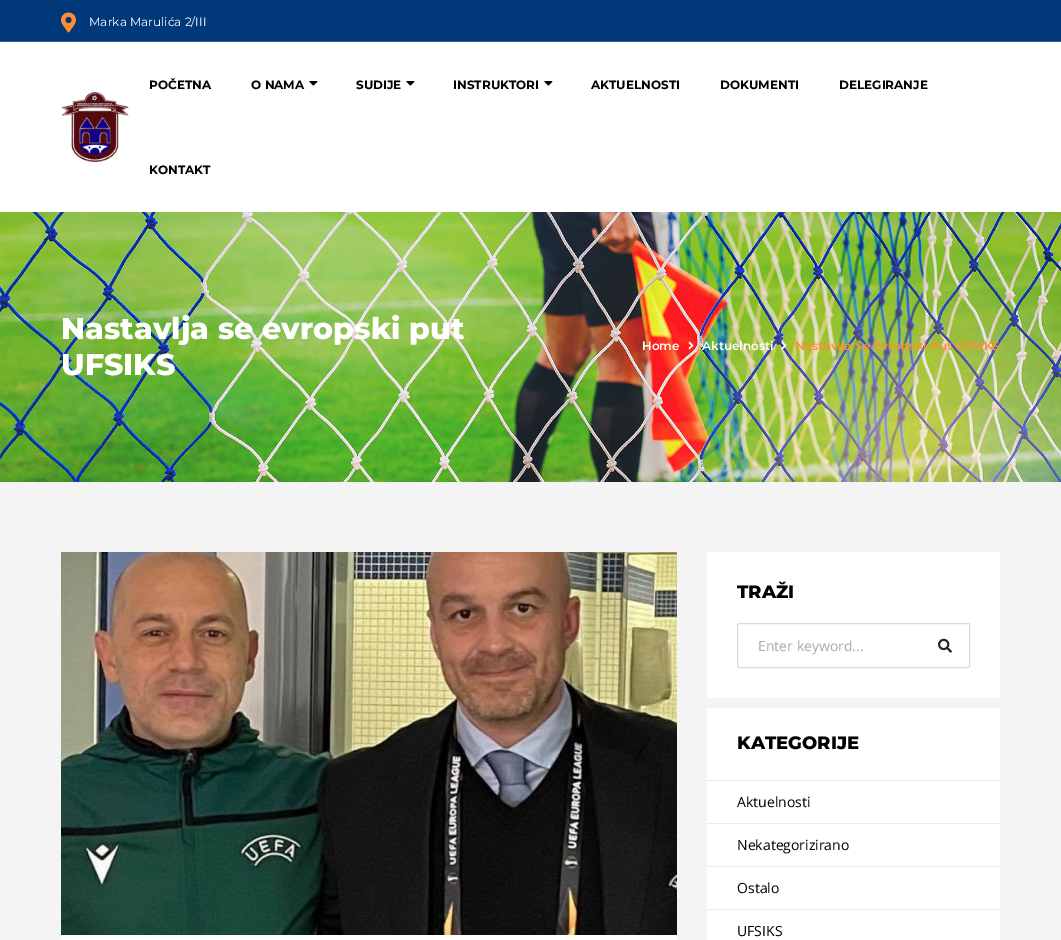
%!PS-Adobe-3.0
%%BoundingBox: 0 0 1061 940
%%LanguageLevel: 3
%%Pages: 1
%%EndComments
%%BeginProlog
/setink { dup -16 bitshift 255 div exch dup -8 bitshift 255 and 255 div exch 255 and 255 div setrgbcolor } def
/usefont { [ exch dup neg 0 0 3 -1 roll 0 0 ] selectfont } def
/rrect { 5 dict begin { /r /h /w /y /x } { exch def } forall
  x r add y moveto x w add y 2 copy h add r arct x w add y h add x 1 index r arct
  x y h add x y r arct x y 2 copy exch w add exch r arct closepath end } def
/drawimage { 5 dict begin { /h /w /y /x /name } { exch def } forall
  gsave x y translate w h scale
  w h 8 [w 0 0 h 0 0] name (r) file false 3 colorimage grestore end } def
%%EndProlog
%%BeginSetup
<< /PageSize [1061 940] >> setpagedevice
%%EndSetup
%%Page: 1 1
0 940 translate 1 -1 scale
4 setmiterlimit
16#FFFFFF setink
0 0 1061 940 rectfill
16#00387A setink
0 0 1061 41 rectfill
16#336095 setink
0 41 1061 1 rectfill
(img1.raw) 61 12 15 21 drawimage
/Montserrat-Regular 12 usefont
16#FFFFFF setink
89 26 moveto (Marka Marulića 2/III) show
(img2.raw) 61 92 68 70 drawimage
/Montserrat-Bold 12 usefont
16#000000 setink
149 89 moveto (POČETNA) show
251 89 moveto (O NAMA) show
(img3.raw) 309 81 9 5 drawimage
356 89 moveto (SUDIJE) show
(img3.raw) 406 81 9 5 drawimage
453 89 moveto (INSTRUKTORI) show
(img3.raw) 544 81 9 5 drawimage
[
    [(AKTUELNOSTI) 591 89]
    [(DOKUMENTI) 720 89]
    [(DELEGIRANJE) 839 89]
    [(KONTAKT) 149 174]
] { aload pop moveto show } forall
16#F4F4F4 setink
0 482 1061 458 rectfill
(img4.raw) 0 212 1061 270 drawimage
/Montserrat-ExtraBold 30 usefont
16#FFFFFF setink
61 339 moveto (Nastavlja se evropski put) show
61 375 moveto (UFSIKS) show
/Montserrat-SemiBold 12 usefont
642 350 moveto (Home) show
(img5.raw) 688 341 6 9 drawimage
702 350 moveto (Aktuelnosti) show
(img6.raw) 781 341 6 9 drawimage
16#FF8E30 setink
795 350 moveto (Nastavlja Se Evropski Put UFSIKS) show
(img7.raw) 61 552 616 383 drawimage
16#FFFFFF setink
61 935 616 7 2 rrect fill
707 552 293 146 2 rrect fill
/Montserrat-ExtraBold 18 usefont
16#000000 setink
737 598 moveto (TRAŽI) show
16#DBDBDB setink
737.5 623.5 232 44 1.5 rrect stroke
/OpenSans-Regular 14 usefont
16#A9A9A9 setink
758 651 moveto (Enter keyword...) show
(img8.raw) 938 638 14 15 drawimage
16#FFFFFF setink
707 708 293 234 2 rrect fill
/Montserrat-ExtraBold 18 usefont
16#000000 setink
737 749 moveto (KATEGORIJE) show
16#EBEBEB setink
707 780 293 1 rectfill
/OpenSans-Regular 14 usefont
16#000000 setink
737 807 moveto (Aktuelnosti) show
16#EBEBEB setink
707 823 293 1 rectfill
16#000000 setink
737 850 moveto (Nekategorizirano) show
16#EBEBEB setink
707 866 293 1 rectfill
16#000000 setink
737 893 moveto (Ostalo) show
16#EBEBEB setink
707 909 293 1 rectfill
16#000000 setink
737 936 moveto (UFSIKS) show
showpage
%%EOF
